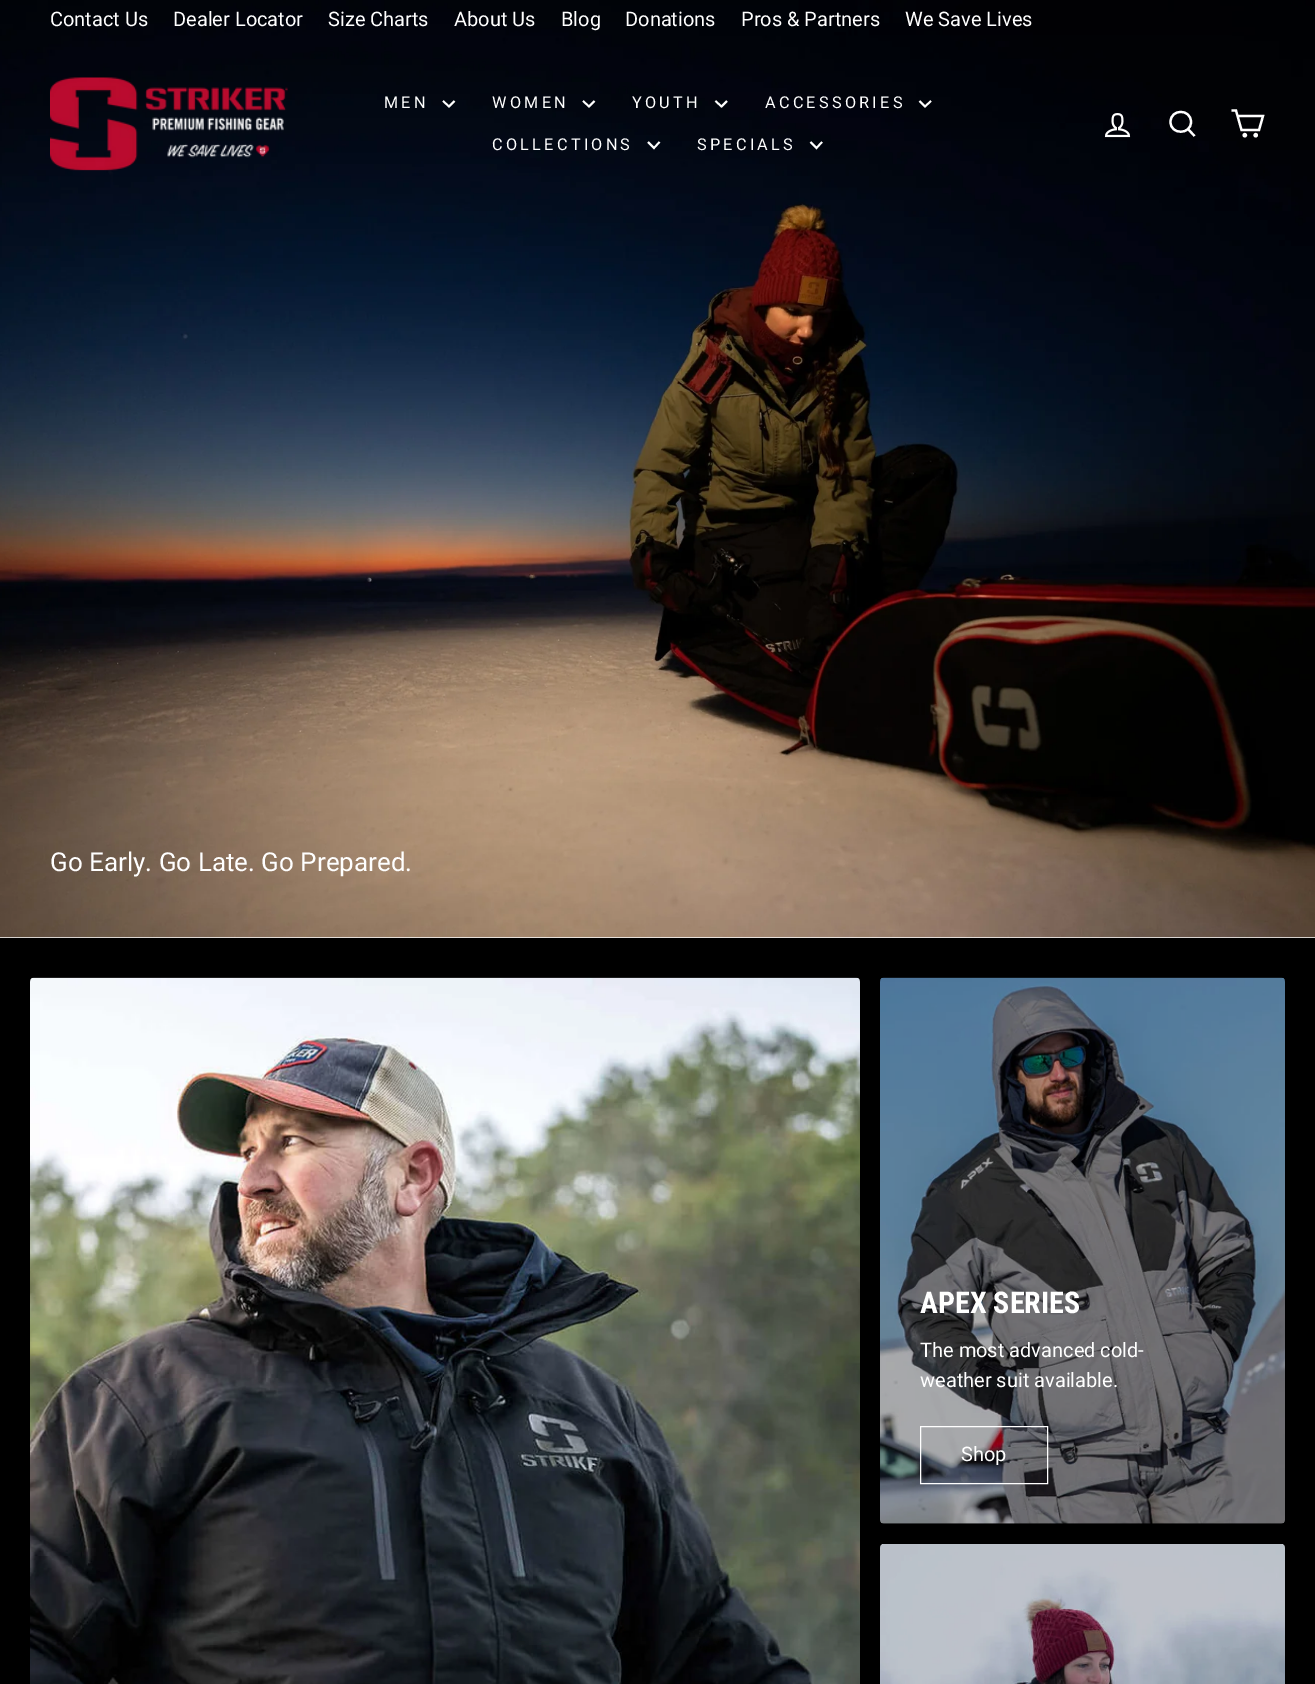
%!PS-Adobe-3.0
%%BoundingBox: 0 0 1315 1684
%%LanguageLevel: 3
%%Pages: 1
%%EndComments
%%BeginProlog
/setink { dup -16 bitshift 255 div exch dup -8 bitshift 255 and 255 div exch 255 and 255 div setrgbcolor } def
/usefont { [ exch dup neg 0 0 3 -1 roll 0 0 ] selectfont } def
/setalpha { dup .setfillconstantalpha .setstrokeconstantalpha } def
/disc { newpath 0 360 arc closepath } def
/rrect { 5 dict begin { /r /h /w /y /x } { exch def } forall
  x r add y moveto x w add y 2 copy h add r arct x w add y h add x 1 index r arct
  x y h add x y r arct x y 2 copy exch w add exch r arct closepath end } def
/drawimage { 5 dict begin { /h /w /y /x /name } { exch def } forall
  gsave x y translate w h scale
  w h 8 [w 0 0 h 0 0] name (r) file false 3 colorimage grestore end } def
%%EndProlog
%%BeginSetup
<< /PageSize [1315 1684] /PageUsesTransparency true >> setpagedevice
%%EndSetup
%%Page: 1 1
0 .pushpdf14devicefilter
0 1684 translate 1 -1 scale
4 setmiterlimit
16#FFFFFF setink
0 0 1315 1684 rectfill
(img3.raw) 0 0 1315 938 drawimage
/Roboto-Regular 20 usefont
[
    [(Contact Us) 50 26]
    [(Dealer Locator) 173 26]
    [(Size Charts) 328 26]
    [(About Us) 454 26]
    [(Blog) 561 26]
    [(Donations) 625 26]
    [(Pros & Partners) 741 26]
    [(We Save Lives) 905 26]
] { aload pop moveto show } forall
(img1.raw) 50 77 238 94 drawimage
/Roboto-Regular 16.25 usefont
384 108 moveto 3.25 0 (MEN) ashow
1.8 setlinewidth
443 101 moveto 449 106.5 lineto 454.5 101 lineto stroke
492 108 moveto 3.25 0 (WOMEN) ashow
583 101 moveto 589 106.5 lineto 594.5 101 lineto stroke
632 108 moveto 3.25 0 (YOUTH) ashow
715.5 101 moveto 721.5 106.5 lineto 727 101 lineto stroke
765 108 moveto 3.25 0 (ACCESSORIES) ashow
919.5 101 moveto 925 106.5 lineto 931 101 lineto stroke
492 150 moveto 3.25 0 (COLLECTIONS) ashow
648 142 moveto 654 148 lineto 659.5 142 lineto stroke
697 150 moveto 3.25 0 (SPECIALS) ashow
810.5 142 moveto 816.5 148 lineto 822 142 lineto stroke
(img2.raw) 1104 113 27 25 drawimage
2.2 setlinewidth
1191 122 moveto 1191 135 1170.5 135 1170.5 122 curveto 1170.5 108.5 1191 108.5 1191 122 curveto closepath 1194.5 136 moveto 1188 129 lineto stroke
1237.5 116 moveto 1263 116 lineto 1259 130 lineto 1241.5 130 lineto 1236 110.5 lineto 1231.5 110.5 lineto stroke
1244.8 135.2 1.1 disc stroke
1255.7 135.2 1.1 disc stroke
/Roboto-Regular 26 usefont
50 871 moveto (Go Early. Go Late. Go Prepared.) show
16#000000 setink
0 938 1315 746 rectfill
(img4.raw) 30 977 830 707 drawimage
(img5.raw) 880 977 405 547 drawimage
0.3 setalpha
880 978 405 546 4 rrect fill
/RobotoCondensed-Bold 30 usefont
1 setalpha
16#FFFFFF setink
920 1313 moveto (APEX SERIES) show
/Roboto-Regular 20 usefont
920 1357 moveto (The most advanced cold-) show
920 1387 moveto (weather suit available.) show
1 setlinewidth
920.5 1426.5 127 57 rectstroke
961 1461 moveto (Shop) show
(img6.raw) 880 1544 405 140 drawimage
0.2 setalpha
16#000000 setink
880 1544 405 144 4 rrect fill
.poppdf14devicefilter showpage
%%EOF
